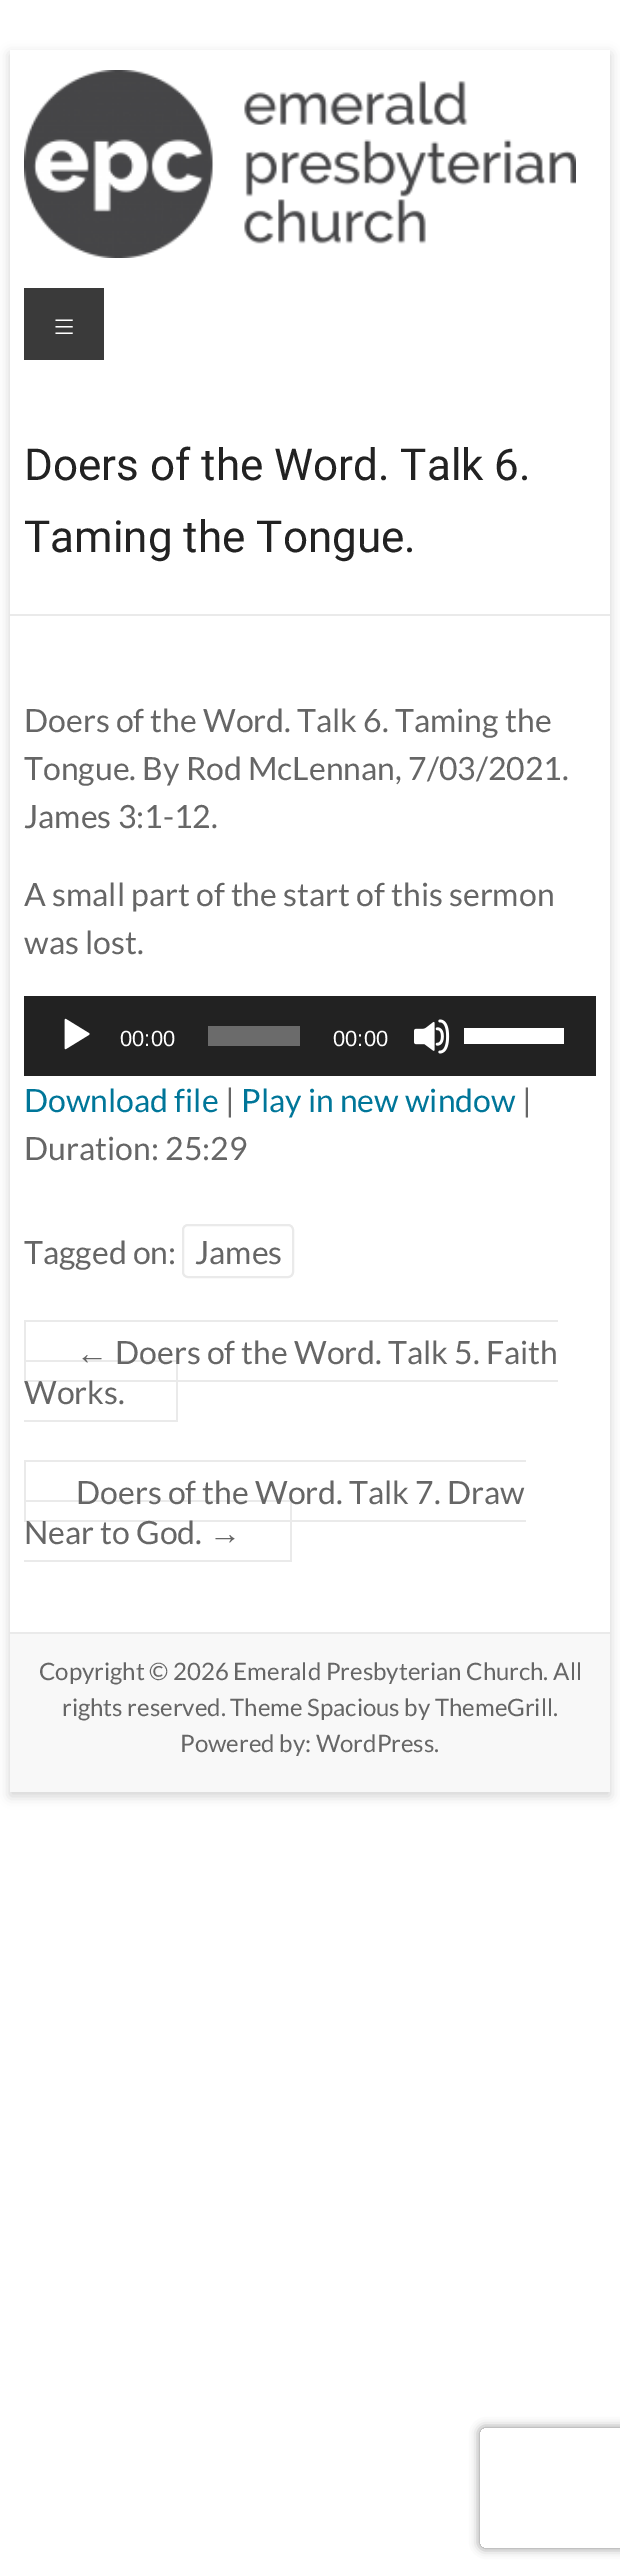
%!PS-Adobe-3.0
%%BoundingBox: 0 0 620 2576
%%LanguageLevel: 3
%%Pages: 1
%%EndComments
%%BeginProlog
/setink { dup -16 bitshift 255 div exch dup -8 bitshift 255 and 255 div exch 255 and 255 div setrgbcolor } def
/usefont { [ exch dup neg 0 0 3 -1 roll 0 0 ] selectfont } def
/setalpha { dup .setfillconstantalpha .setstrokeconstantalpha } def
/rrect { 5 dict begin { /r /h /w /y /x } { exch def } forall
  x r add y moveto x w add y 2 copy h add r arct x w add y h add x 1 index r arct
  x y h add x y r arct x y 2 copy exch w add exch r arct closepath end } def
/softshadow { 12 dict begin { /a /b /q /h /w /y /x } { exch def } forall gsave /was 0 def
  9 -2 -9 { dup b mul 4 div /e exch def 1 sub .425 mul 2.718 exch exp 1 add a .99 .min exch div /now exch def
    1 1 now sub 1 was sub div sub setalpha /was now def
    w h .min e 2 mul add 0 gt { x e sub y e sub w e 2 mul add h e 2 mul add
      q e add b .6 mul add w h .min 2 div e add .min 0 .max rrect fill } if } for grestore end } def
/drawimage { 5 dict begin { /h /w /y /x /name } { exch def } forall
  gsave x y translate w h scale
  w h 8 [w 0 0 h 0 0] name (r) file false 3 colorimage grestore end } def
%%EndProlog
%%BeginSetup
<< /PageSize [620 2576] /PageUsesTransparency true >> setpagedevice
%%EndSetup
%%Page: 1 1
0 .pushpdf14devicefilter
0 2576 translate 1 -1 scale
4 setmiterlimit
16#FFFFFF setink
0 0 620 2576 rectfill
gsave
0 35 moveto 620 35 lineto 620 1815 lineto 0 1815 lineto closepath 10 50 moveto 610 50 lineto 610 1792 lineto 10 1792 lineto closepath eoclip newpath
16#646464 setink
10 54 600 1742 0 6 0.3 softshadow
grestore
(img1.raw) 24 70 552 188 drawimage
16#3A3A3A setink
24 288 80 72 rectfill
/Lato-Light 42 usefont
16#FFFFFF setink
52 341 moveto (≡) show
16#EAEAEA setink
10 614 600 2 rectfill
/Roboto-Regular 44 usefont
16#222222 setink
24 480 moveto (Doers of the Word. Talk 6.) show
24 552 moveto (Taming the Tongue.) show
/Lato-Regular 32 usefont
16#666666 setink
[
    [(Doers of the Word. Talk 6. Taming the) 24 732]
    [(Tongue. By Rod McLennan, 7/03/2021.) 24 780]
    [(James 3:1-12.) 24 828]
    [(A small part of the start of this sermon) 24 906]
    [(was lost.) 24 954]
] { aload pop moveto show } forall
16#222222 setink
24 996 572 80 rectfill
(img2.raw) 64 1018 26 32 drawimage
/LiberationSans-Regular 22 usefont
16#FFFFFF setink
120 1046 moveto (00:00) show
16#6B6B6B setink
208 1026 92 20 rectfill
16#FFFFFF setink
333 1046 moveto (00:00) show
(img3.raw) 414 1019 36 35 drawimage
464 1028 100 16 rectfill
/Lato-Regular 32 usefont
16#007699 setink
24 1112 moveto (Download file) show
16#666666 setink
225 1112 moveto (|) show
16#007699 setink
241 1112 moveto (Play in new window) show
16#666666 setink
[
    [(|) 522 1112]
    [(Duration: 25:29) 24 1160]
    [(Tagged on:) 24 1264]
] { aload pop moveto show } forall
16#EAEAEA setink
2 setlinewidth
183 1225 110 52 5 rrect stroke
16#666666 setink
195 1264 moveto (James) show
[
    [24 1320 534 2 16#EAEAEA]
    [24 1380 534 2 16#EAEAEA]
    [24 1320 2 62 16#EAEAEA]
    [24 1360 154 2 16#EAEAEA]
] { aload pop setink rectfill } forall
/LiberationSans-Regular 32 usefont
16#666666 setink
76 1364 moveto (←) show
16#EAEAEA setink
176 1360 2 62 rectfill
/Lato-Regular 32 usefont
16#666666 setink
115 1364 moveto (Doers of the Word. Talk 5. Faith) show
24 1404 moveto (Works.) show
[
    [24 1420 154 2 16#EAEAEA]
    [24 1460 502 2 16#EAEAEA]
    [24 1520 502 2 16#EAEAEA]
    [24 1460 2 62 16#EAEAEA]
    [24 1500 268 2 16#EAEAEA]
    [290 1500 2 62 16#EAEAEA]
] { aload pop setink rectfill } forall
16#666666 setink
76 1504 moveto (Doers of the Word. Talk 7. Draw) show
24 1544 moveto (Near to God.) show
/LiberationSans-Regular 32 usefont
209 1544 moveto (→) show
[
    [24 1560 184 2 16#EAEAEA]
    [208 1560 84 2 16#EAEAEA]
    [10 1634 600 158 16#F8F8F8]
    [10 1632 600 2 16#EAEAEA]
] { aload pop setink rectfill } forall
/Lato-Regular 24 usefont
16#666666 setink
[
    [(Copyright © 2026 Emerald Presbyterian Church. All) 39 1680]
    [(rights reserved. Theme Spacious by ThemeGrill.) 62 1716]
    [(Powered by: WordPress.) 180 1752]
] { aload pop moveto show } forall
gsave
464 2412 moveto 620 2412 lineto 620 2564 lineto 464 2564 lineto closepath 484 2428 moveto 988 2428 lineto 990 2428 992 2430 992 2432 curveto 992 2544 lineto 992 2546 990 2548 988 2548 curveto 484 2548 lineto 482 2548 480 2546 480 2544 curveto 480 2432 lineto 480 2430 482 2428 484 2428 curveto closepath eoclip newpath
16#808080 setink
480 2428 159 120 4 5 1 softshadow
grestore
.poppdf14devicefilter showpage
%%EOF
